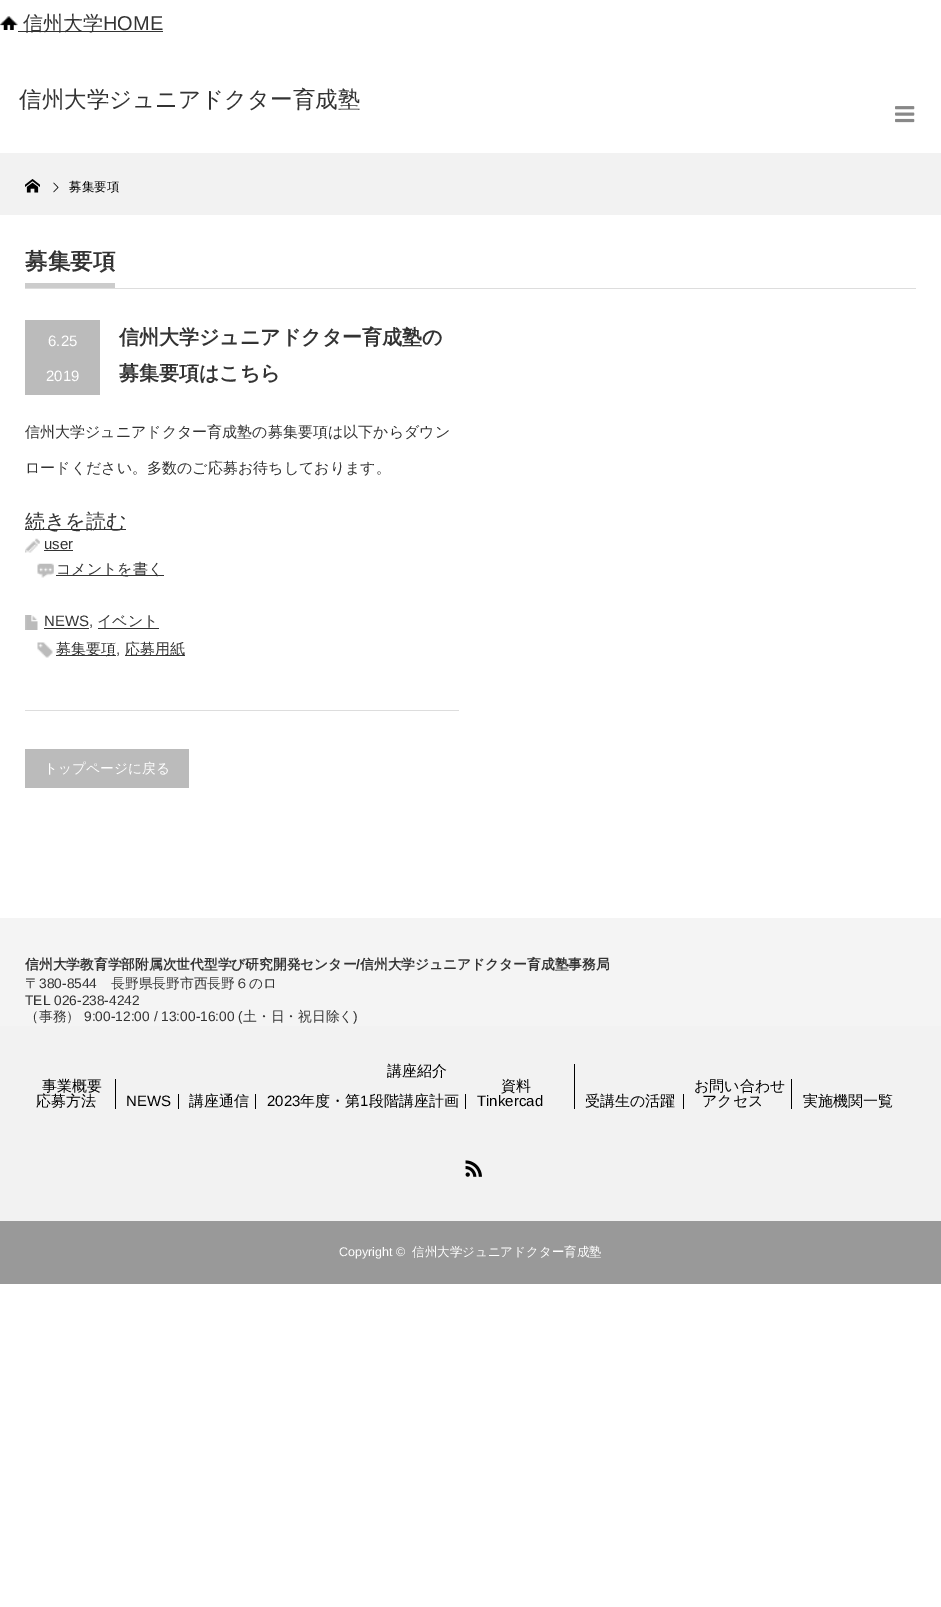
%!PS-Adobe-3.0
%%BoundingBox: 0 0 941 1607
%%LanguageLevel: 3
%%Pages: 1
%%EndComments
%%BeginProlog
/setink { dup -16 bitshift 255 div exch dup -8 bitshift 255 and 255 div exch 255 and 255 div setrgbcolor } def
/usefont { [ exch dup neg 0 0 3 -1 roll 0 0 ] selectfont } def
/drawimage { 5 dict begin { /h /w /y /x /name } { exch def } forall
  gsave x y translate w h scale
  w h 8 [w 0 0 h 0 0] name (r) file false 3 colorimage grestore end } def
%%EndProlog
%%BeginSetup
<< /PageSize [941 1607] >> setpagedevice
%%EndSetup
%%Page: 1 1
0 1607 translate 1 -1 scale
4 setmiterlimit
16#FFFFFF setink
0 0 941 1607 rectfill
(img1.raw) 0 16 18 14 drawimage
16#333333 setink
18 31 145 1 rectfill
/WenQuanYiZenHei-Medium 20 usefont
23 30 moveto (信州大学) show
/LiberationSans-Regular 20 usefont
103 30 moveto (HOME) show
/WenQuanYiZenHei-Medium 22.5 usefont
19 107 moveto (信州大学ジュニアドクター育成塾) show
(img2.raw) 895 106 20 17 drawimage
16#F2F2F2 setink
0 153 941 62 rectfill
(img3.raw) 25 179 15 14 drawimage
(img4.raw) 53 182 6 11 drawimage
/WenQuanYiZenHei-Medium 12.5 usefont
16#000000 setink
69 191 moveto (募集要項) show
16#DDDDDD setink
25 288 891 1 rectfill
16#CCCCCC setink
25 283 90 5 rectfill
/WenQuanYiZenHei-Bold 22.5 usefont
16#333333 setink
25 269 moveto (募集要項) show
16#DDDDDD setink
25 710 434 1 rectfill
16#BBBBBB setink
25 320 75 75 rectfill
/LiberationSans-Regular 15 usefont
16#FFFFFF setink
48 346 moveto (6.25) show
46 381 moveto (2019) show
/WenQuanYiZenHei-Bold 20 usefont
16#333333 setink
119 344 moveto (信州大学ジュニアドクター育成塾の) show
119 380 moveto (募集要項はこちら) show
/WenQuanYiZenHei-Medium 15 usefont
25 437 moveto (信州大学ジュニアドクター育成塾の募集要項は以下からダウン) show
25 473 moveto (ロードください。多数のご応募お待ちしております。) show
25 529 101 1 rectfill
/WenQuanYiZenHei-Medium 20 usefont
25 528 moveto (続きを読む) show
(img5.raw) 25 538 15 15 drawimage
/LiberationSans-Regular 15 usefont
44 549 moveto (user) show
44 550 29 1 rectfill
(img6.raw) 37 563 17 15 drawimage
56 575 108 1 rectfill
/WenQuanYiZenHei-Medium 15 usefont
56 574 moveto (コメントを書く) show
(img7.raw) 25 615 13 15 drawimage
/LiberationSans-Regular 15 usefont
44 626 moveto (NEWS,) show
44 628 45 1 rectfill
/WenQuanYiZenHei-Medium 15 usefont
97 626 moveto (イベント) show
98 628 61 1 rectfill
(img8.raw) 37 642 16 16 drawimage
56 655 60 1 rectfill
56 654 moveto (募集要項) show
/LiberationSans-Regular 15 usefont
116 654 moveto (,) show
125 655 60 1 rectfill
/WenQuanYiZenHei-Medium 15 usefont
125 654 moveto (応募用紙) show
16#BBBBBB setink
25 749 164 39 rectfill
/WenQuanYiZenHei-Medium 13.75 usefont
16#FFFFFF setink
44 773 moveto (トップページに戻る) show
16#F4F4F4 setink
0 918 941 108 rectfill
/WenQuanYiZenHei-Bold 13.75 usefont
16#333333 setink
25 969 moveto (信州大学教育学部附属次世代型学び研究開発センター) show
/LiberationSans-Bold 13.75 usefont
356 969 moveto (/) show
/WenQuanYiZenHei-Bold 13.75 usefont
360 969 moveto (信州大学ジュニアドクター育成塾事務局) show
/WenQuanYiZenHei-Medium 13.75 usefont
25 988 moveto (〒) show
/LiberationSans-Regular 13.75 usefont
39 988 moveto (380-8544) show
/WenQuanYiZenHei-Medium 13.75 usefont
111 988 moveto (長野県長野市西長野６のロ) show
/LiberationSans-Regular 13.75 usefont
25 1005 moveto (TEL 026-238-4242) show
/WenQuanYiZenHei-Medium 13.75 usefont
25 1021 moveto (（事務）) show
/LiberationSans-Regular 13.75 usefont
84 1021 moveto (9:00-12:00 / 13:00-16:00 \() show
/WenQuanYiZenHei-Medium 13.75 usefont
243 1021 moveto (土・日・祝日除く) show
/LiberationSans-Regular 13.75 usefont
353 1021 moveto (\)) show
16#F2F2F2 setink
0 1026 941 195 rectfill
16#000000 setink
115 1079 1 30 rectfill
/WenQuanYiZenHei-Medium 15 usefont
42 1091 moveto (事業概要) show
36 1106 moveto (応募方法) show
178 1094 1 15 rectfill
/LiberationSans-Regular 15 usefont
126 1106 moveto (NEWS) show
255 1094 1 15 rectfill
/WenQuanYiZenHei-Medium 15 usefont
189 1106 moveto (講座通信) show
574 1064 1 45 rectfill
387 1076 moveto (講座紹介) show
465 1094 1 15 rectfill
/LiberationSans-Regular 15 usefont
267 1106 moveto (2023) show
/WenQuanYiZenHei-Medium 15 usefont
300 1106 moveto (年度・第) show
/LiberationSans-Regular 15 usefont
360 1106 moveto (1) show
/WenQuanYiZenHei-Medium 15 usefont
369 1106 moveto (段階講座計画) show
501 1091 moveto (資料) show
/LiberationSans-Regular 15 usefont
477 1106 moveto (Tinkercad) show
683 1094 1 15 rectfill
/WenQuanYiZenHei-Medium 15 usefont
585 1106 moveto (受講生の活躍) show
791 1079 1 30 rectfill
[
    [(お問い合わせ) 694 1091]
    [(アクセス) 702 1106]
    [(実施機関一覧) 803 1106]
] { aload pop moveto show } forall
(img9.raw) 465 1160 17 17 drawimage
16#999999 setink
0 1221 941 63 rectfill
/LiberationSans-Regular 12.5 usefont
16#FFFFFF setink
339 1256 moveto (Copyright ©) show
/WenQuanYiZenHei-Medium 12.5 usefont
412 1256 moveto (信州大学ジュニアドクター育成塾) show
showpage
%%EOF
